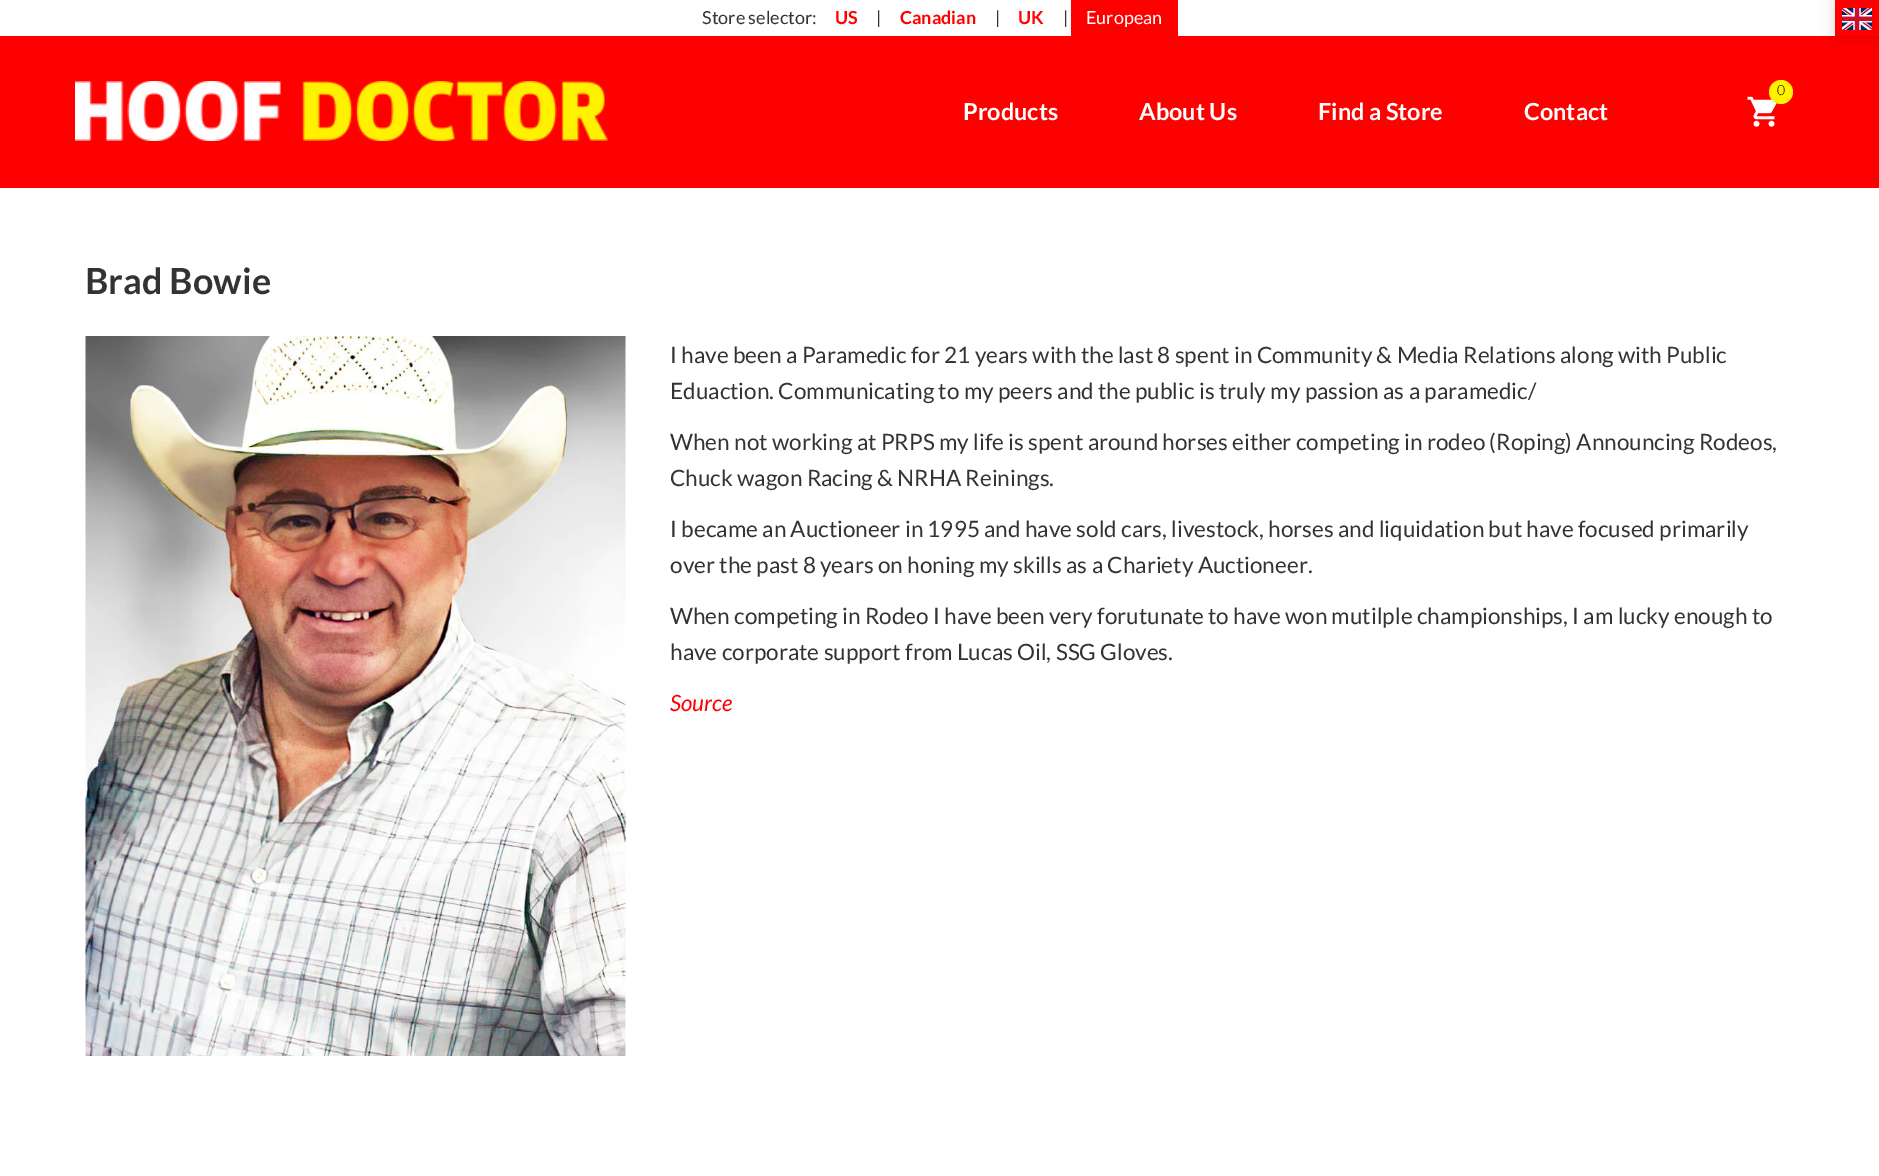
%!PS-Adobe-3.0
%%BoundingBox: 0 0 1879 1176
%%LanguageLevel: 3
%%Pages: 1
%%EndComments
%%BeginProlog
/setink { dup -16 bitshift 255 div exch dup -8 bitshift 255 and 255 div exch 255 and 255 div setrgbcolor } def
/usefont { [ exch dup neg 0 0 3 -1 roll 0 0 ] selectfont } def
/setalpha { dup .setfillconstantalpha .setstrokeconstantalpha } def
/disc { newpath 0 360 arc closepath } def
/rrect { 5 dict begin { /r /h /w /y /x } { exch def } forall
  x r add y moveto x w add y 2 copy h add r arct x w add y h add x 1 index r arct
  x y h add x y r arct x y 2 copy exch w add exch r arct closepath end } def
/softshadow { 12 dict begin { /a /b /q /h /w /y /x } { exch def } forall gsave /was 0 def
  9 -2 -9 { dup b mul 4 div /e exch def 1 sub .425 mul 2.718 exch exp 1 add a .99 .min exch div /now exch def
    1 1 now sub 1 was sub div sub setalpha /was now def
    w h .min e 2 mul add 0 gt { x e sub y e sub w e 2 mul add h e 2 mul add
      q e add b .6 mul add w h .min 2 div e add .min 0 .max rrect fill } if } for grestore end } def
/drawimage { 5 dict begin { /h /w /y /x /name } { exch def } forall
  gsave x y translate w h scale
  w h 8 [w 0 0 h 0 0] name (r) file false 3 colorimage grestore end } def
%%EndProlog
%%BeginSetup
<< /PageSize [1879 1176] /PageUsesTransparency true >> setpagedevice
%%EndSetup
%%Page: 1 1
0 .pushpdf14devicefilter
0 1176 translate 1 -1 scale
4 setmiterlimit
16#FFFFFF setink
0 0 1879 1176 rectfill
/Lato-Regular 18 usefont
16#333333 setink
702 24 moveto (Store selector:) show
/Lato-Bold 18 usefont
16#FF0000 setink
835 24 moveto (US) show
/Lato-Regular 18 usefont
16#333333 setink
876 24 moveto (|) show
/Lato-Bold 18 usefont
16#FF0000 setink
900 24 moveto (Canadian) show
/Lato-Regular 18 usefont
16#333333 setink
995 24 moveto (|) show
/Lato-Bold 18 usefont
16#FF0000 setink
1018 24 moveto (UK) show
/Lato-Regular 18 usefont
16#333333 setink
1063 24 moveto (|) show
16#FF0000 setink
1071 0 107 36 rectfill
16#FFFFFF setink
1086 24 moveto (European) show
16#FF0000 setink
0 36 1879 152 rectfill
16#000000 setink
1835 0 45 36 0 7.5 0.15 softshadow
16#FF0000 setink
1835 0 44 36 rectfill
(img1.raw) 1842 8 30 22 drawimage
(img2.raw) 75 81 533 60 drawimage
(img3.raw) 1747 96 30 31 drawimage
16#FFF200 setink
1781 92 12 disc fill
/Lato-Light 14 usefont
16#000000 setink
1777 95 moveto (0) show
/Lato-Bold 23.5 usefont
16#FFFFFF setink
[
    [(Products) 963 120]
    [(About Us) 1139 120]
    [(Find a Store) 1318 120]
    [(Contact) 1524 120]
] { aload pop moveto show } forall
/Lato-Bold 36 usefont
16#333333 setink
85 294 moveto (Brad Bowie) show
(img4.raw) 85 336 541 720 drawimage
/Lato-Regular 22.5 usefont
[
    [(I have been a Paramedic for 21 years with the last 8 spent in Community & Media Relations along with Public) 670 363]
    [(Eduaction. Communicating to my peers and the public is truly my passion as a paramedic/) 670 399]
    [(When not working at PRPS my life is spent around horses either competing in rodeo \(Roping\) Announcing Rodeos,) 670 450]
    [(Chuck wagon Racing & NRHA Reinings.) 670 486]
    [(I became an Auctioneer in 1995 and have sold cars, livestock, horses and liquidation but have focused primarily) 670 537]
    [(over the past 8 years on honing my skills as a Chariety Auctioneer.) 670 573]
    [(When competing in Rodeo I have been very forutunate to have won mutilple championships, I am lucky enough to) 670 624]
    [(have corporate support from Lucas Oil, SSG Gloves.) 670 660]
] { aload pop moveto show } forall
/Lato-Italic 22.5 usefont
16#FF0000 setink
670 711 moveto (Source) show
.poppdf14devicefilter showpage
%%EOF
